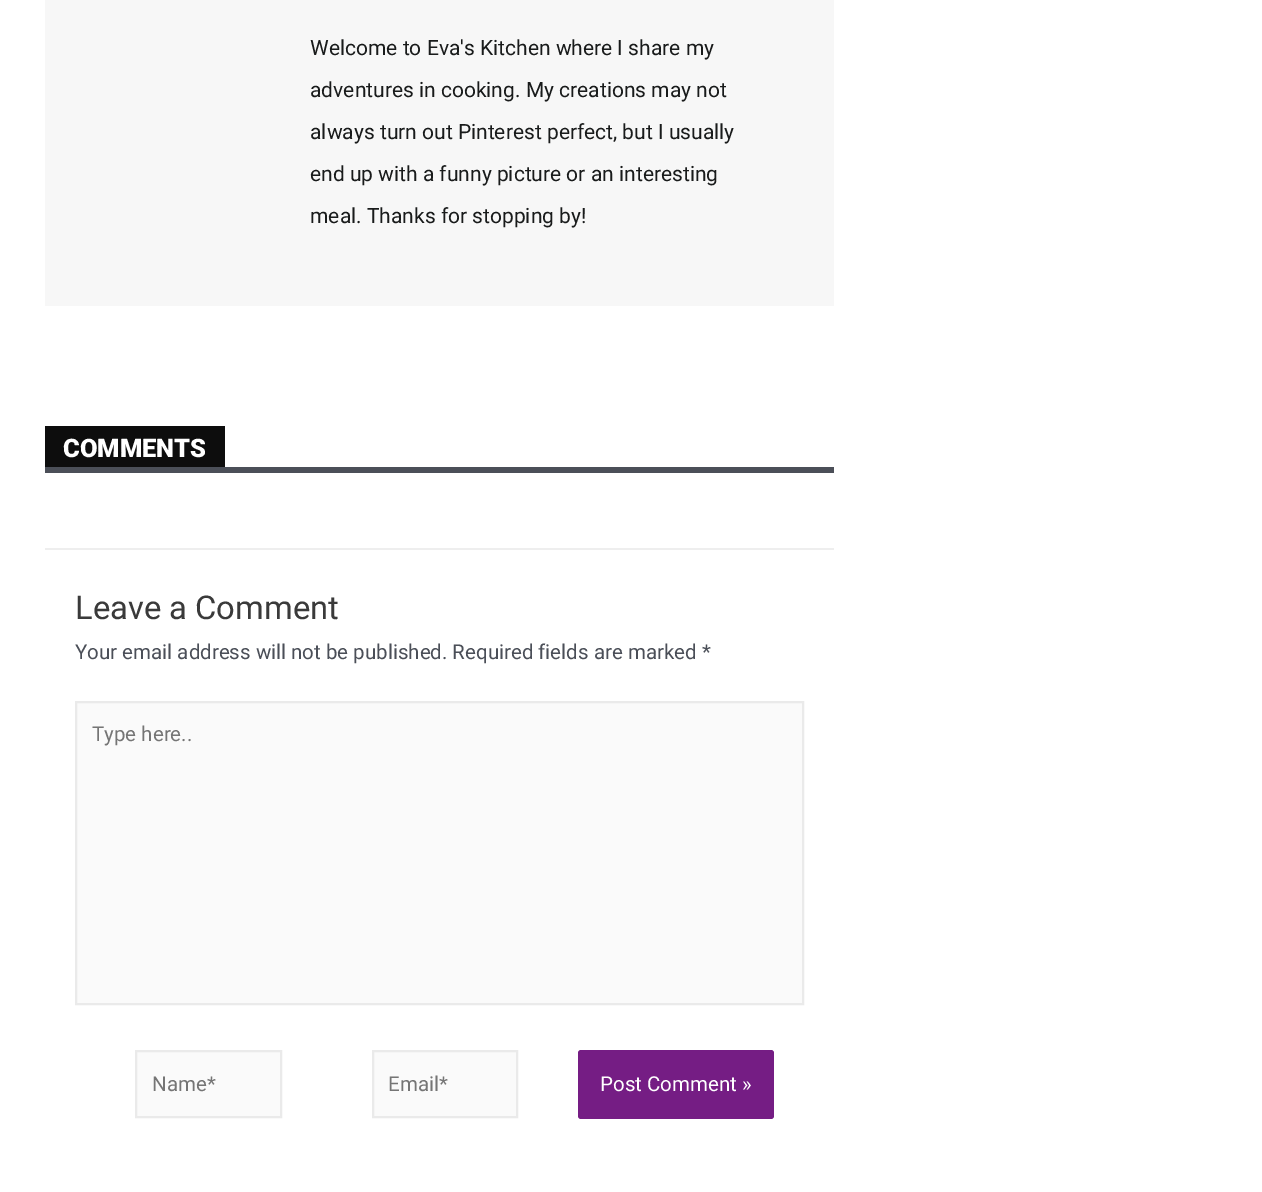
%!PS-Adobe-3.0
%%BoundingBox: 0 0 1262 1192
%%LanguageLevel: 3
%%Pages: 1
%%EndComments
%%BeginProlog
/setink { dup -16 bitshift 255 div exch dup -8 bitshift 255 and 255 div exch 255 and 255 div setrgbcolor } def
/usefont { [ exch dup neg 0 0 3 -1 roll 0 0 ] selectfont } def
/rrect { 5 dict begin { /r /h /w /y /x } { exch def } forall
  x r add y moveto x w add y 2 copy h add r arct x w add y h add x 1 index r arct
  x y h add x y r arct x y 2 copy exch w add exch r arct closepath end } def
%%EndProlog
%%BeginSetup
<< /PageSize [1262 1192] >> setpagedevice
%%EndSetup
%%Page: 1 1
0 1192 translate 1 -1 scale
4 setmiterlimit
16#FFFFFF setink
0 0 1262 1192 rectfill
16#F7F7F7 setink
45 0 789 306 rectfill
/Roboto-Regular 21 usefont
16#191B1B setink
[
    [(Welcome to Eva's Kitchen where I share my) 310 55]
    [(adventures in cooking. My creations may not) 310 97]
    [(always turn out Pinterest perfect, but I usually) 310 139]
    [(end up with a funny picture or an interesting) 310 181]
    [(meal. Thanks for stopping by!) 310 223]
] { aload pop moveto show } forall
16#0D0D0D setink
45 426 180 41 rectfill
/Roboto-Black 25.5 usefont
16#FFFFFF setink
63 457 moveto (COMMENTS) show
16#4B4F58 setink
45 467 789 6 rectfill
16#EEEEEE setink
45 548 789 2 rectfill
/Roboto-Regular 32.75 usefont
16#3A3A3A setink
75 619 moveto (Leave a Comment) show
/Roboto-Regular 20.5 usefont
16#4B4F58 setink
75 659 moveto (Your email address will not be published. Required fields are marked *) show
16#FAFAFA setink
76 702 moveto 803 702 lineto 803 1004 lineto 76 1004 lineto closepath gsave fill grestore
16#EAEAEA setink
2 setlinewidth
stroke
16#757575 setink
92 741 moveto (Type here..) show
16#FAFAFA setink
136 1051 moveto 281 1051 lineto 281 1117 lineto 136 1117 lineto closepath gsave fill grestore
16#EAEAEA setink
stroke
16#757575 setink
152 1091 moveto (Name*) show
16#FAFAFA setink
373 1051 moveto 517 1051 lineto 517 1117 lineto 373 1117 lineto closepath gsave fill grestore
16#EAEAEA setink
stroke
16#757575 setink
388 1091 moveto (Email*) show
16#751D84 setink
578 1050 196 69 3 rrect fill
16#FFFFFF setink
600 1091 moveto (Post Comment ») show
showpage
%%EOF
